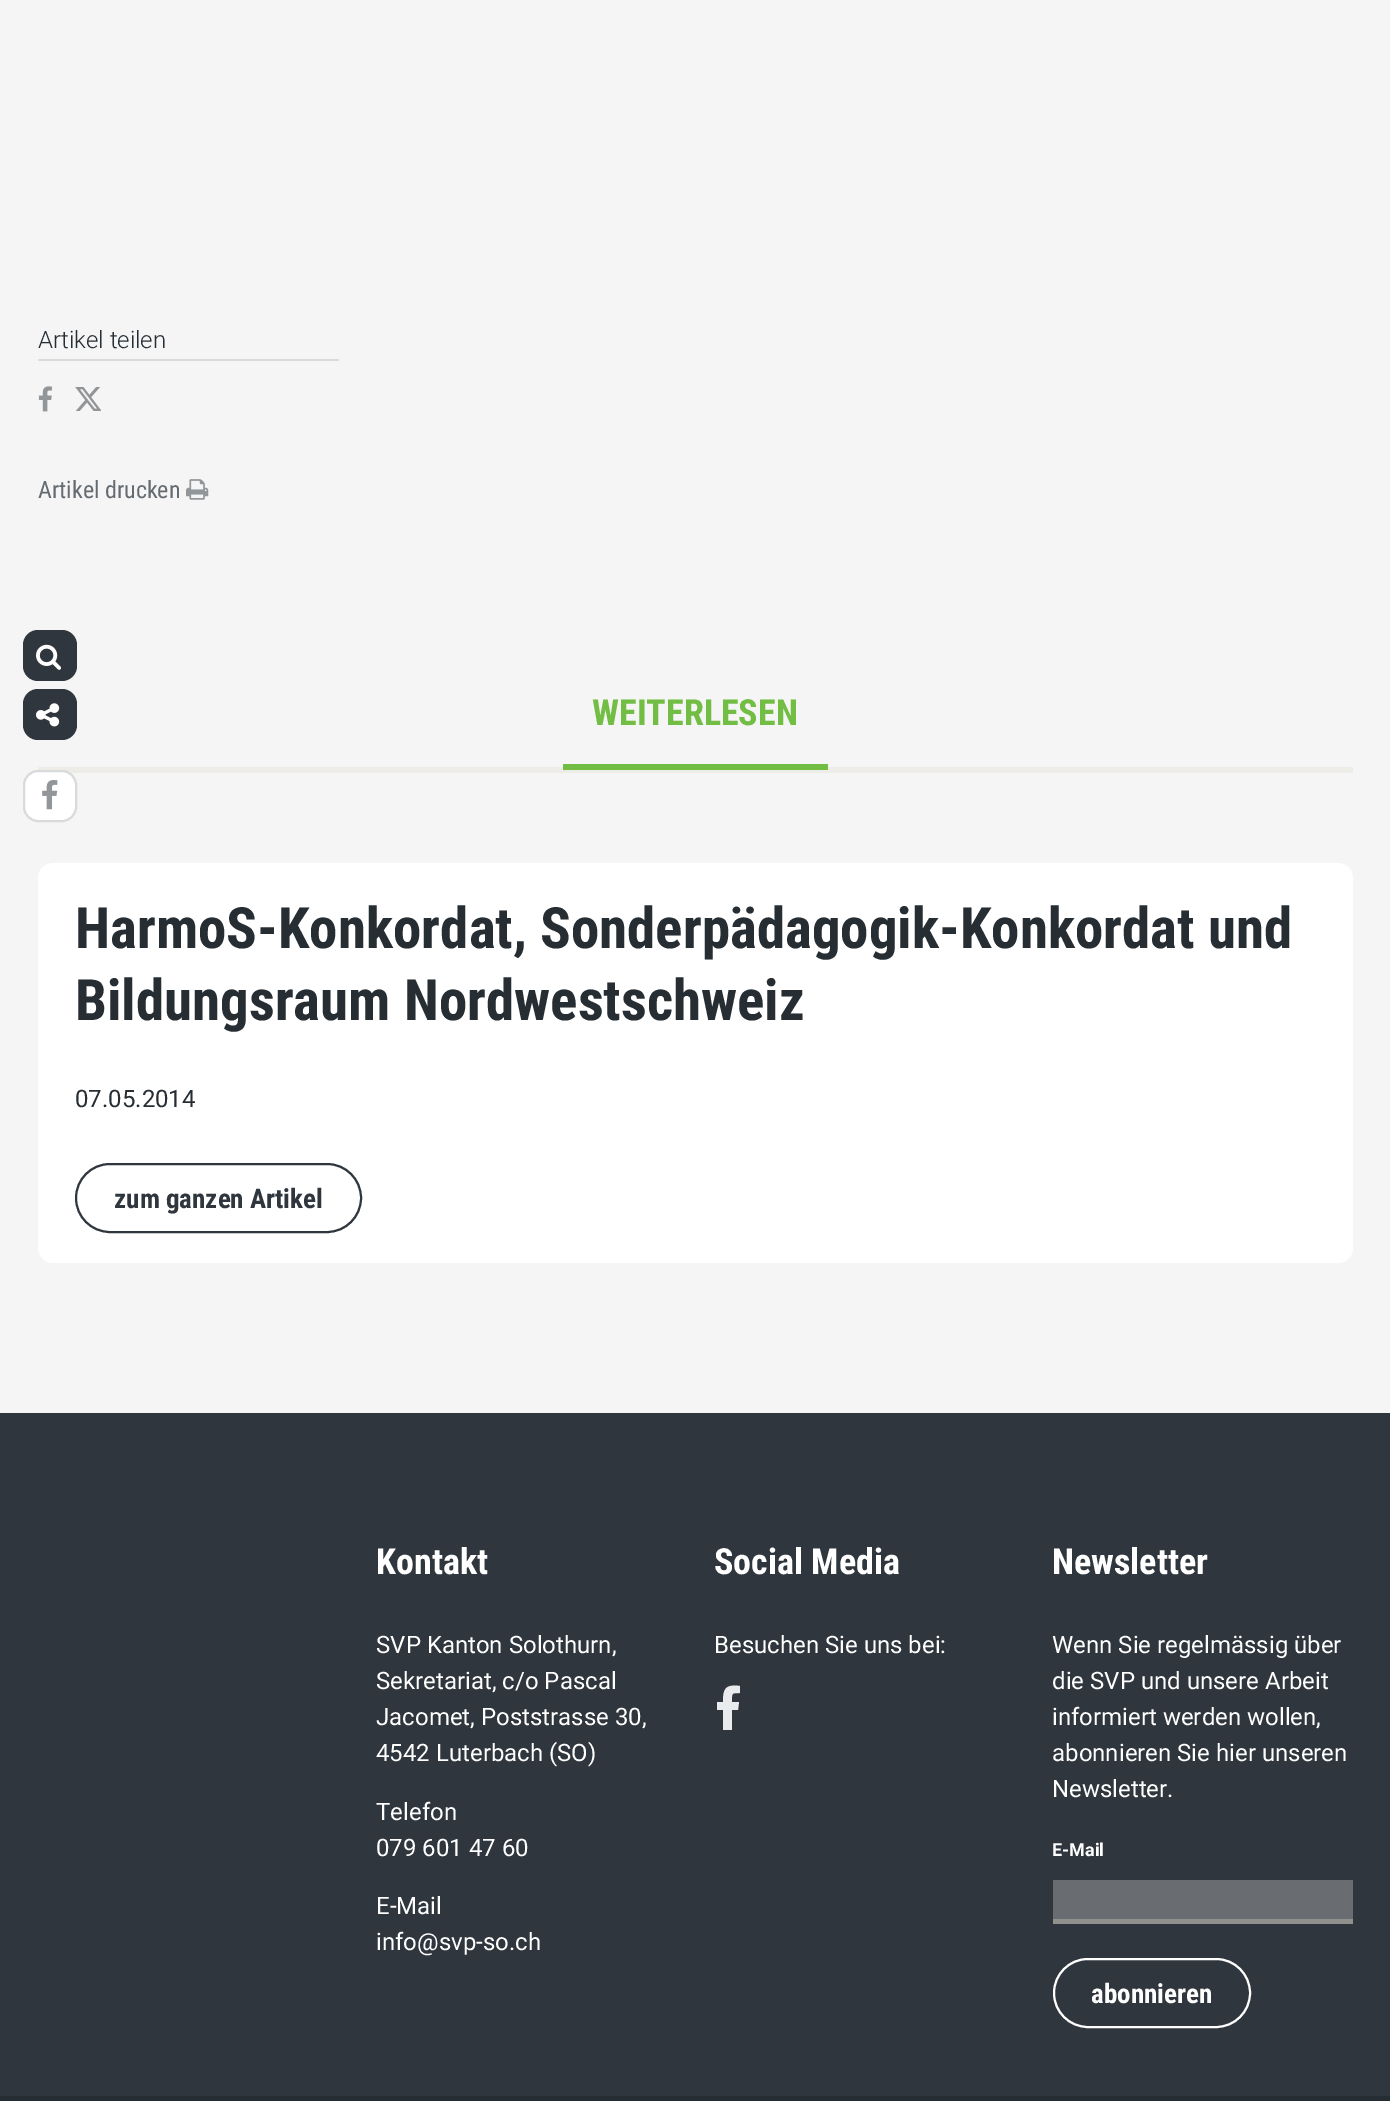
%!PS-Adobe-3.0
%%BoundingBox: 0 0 1390 2101
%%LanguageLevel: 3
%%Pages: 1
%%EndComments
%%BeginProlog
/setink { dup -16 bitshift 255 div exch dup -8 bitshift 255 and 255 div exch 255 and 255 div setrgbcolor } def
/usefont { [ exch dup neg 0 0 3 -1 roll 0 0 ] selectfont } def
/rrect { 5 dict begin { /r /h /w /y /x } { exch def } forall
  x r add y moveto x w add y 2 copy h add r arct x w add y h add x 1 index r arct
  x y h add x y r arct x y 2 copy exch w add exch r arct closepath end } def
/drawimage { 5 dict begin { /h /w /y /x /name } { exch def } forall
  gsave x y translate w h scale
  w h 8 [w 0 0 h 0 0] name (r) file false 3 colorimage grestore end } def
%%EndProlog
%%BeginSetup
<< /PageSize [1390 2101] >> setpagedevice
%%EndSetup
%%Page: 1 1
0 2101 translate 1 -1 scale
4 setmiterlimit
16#F5F5F5 setink
0 0 1390 2101 rectfill
16#D9DADB setink
38 359 301 2 rectfill
/Roboto-Light 24 usefont
16#262D33 setink
38 348 moveto (Artikel teilen) show
(img1.raw) 38 386 14 26 drawimage
(img2.raw) 75 387 26 24 drawimage
/RobotoCondensed-Regular 24 usefont
16#656B70 setink
38 498 moveto (Artikel drucken) show
(img3.raw) 186 479 23 21 drawimage
16#EDECE7 setink
38 767 1315 6 rectfill
/RobotoCondensed-Bold 36 usefont
16#72BE44 setink
592 725 moveto (WEITERLESEN) show
563 764 265 6 rectfill
16#FFFFFF setink
38 863 1315 400 15 rrect fill
/RobotoCondensed-Bold 57 usefont
16#262D33 setink
75 948 moveto (HarmoS-Konkordat, Sonderpädagogik-Konkordat und) show
75 1020 moveto (Bildungsraum Nordwestschweiz) show
/Roboto-Regular 24 usefont
75 1107 moveto (07.05.2014) show
16#30363D setink
2 setlinewidth
76 1164 285 68 34 rrect stroke
/RobotoCondensed-Bold 27 usefont
114 1208 moveto (zum ganzen Artikel) show
0 1413 1390 683 rectfill
/RobotoCondensed-Bold 36 usefont
16#FFFFFF setink
376 1574 moveto (Kontakt) show
/Roboto-Regular 24 usefont
[
    [(SVP Kanton Solothurn,) 376 1653]
    [(Sekretariat, c/o Pascal) 376 1689]
    [(Jacomet, Poststrasse 30,) 376 1725]
    [(4542 Luterbach \(SO\)) 376 1761]
    [(Telefon) 376 1820]
    [(079 601 47 60) 376 1856]
    [(E-Mail) 376 1914]
    [(info@svp-so.ch) 376 1950]
] { aload pop moveto show } forall
/RobotoCondensed-Bold 36 usefont
714 1574 moveto (Social Media) show
/Roboto-Regular 24 usefont
714 1653 moveto (Besuchen Sie uns bei:) show
16#EAEBEC setink
740 1686 moveto 740 1693 lineto 731 1693 732 1693 732 1702 curveto 739 1702 lineto 738 1710 lineto 732 1710 lineto 732 1730 lineto 723 1730 lineto 723 1710 lineto 717 1710 lineto 717 1702 lineto 723 1702 lineto 723 1689 725 1684 740 1686 curveto closepath fill
/RobotoCondensed-Bold 36 usefont
16#FFFFFF setink
1052 1574 moveto (Newsletter) show
/Roboto-Regular 24 usefont
[
    [(Wenn Sie regelmässig über) 1052 1653]
    [(die SVP und unsere Arbeit) 1052 1689]
    [(informiert werden wollen,) 1052 1725]
    [(abonnieren Sie hier unseren) 1052 1761]
    [(Newsletter.) 1052 1797]
] { aload pop moveto show } forall
/Roboto-Bold 18 usefont
1052 1856 moveto (E-Mail) show
16#696D72 setink
1053 1880 300 39 rectfill
16#90908C setink
1053 1919 300 5 rectfill
16#FFFFFF setink
1054 1959 196 68 34 rrect stroke
/RobotoCondensed-Bold 27 usefont
1091 2003 moveto (abonnieren) show
16#262D33 setink
0 2096 1390 5 rectfill
16#30363D setink
23 630 54 51 15 rrect fill
(img4.raw) 36 644 25 26 drawimage
23 689 54 51 15 rrect fill
(img5.raw) 36 703 24 24 drawimage
16#FFFFFF setink
24 771 52 50 14 rrect gsave fill grestore
16#D9DADB setink
stroke
(img6.raw) 42 780 16 30 drawimage
showpage
%%EOF
